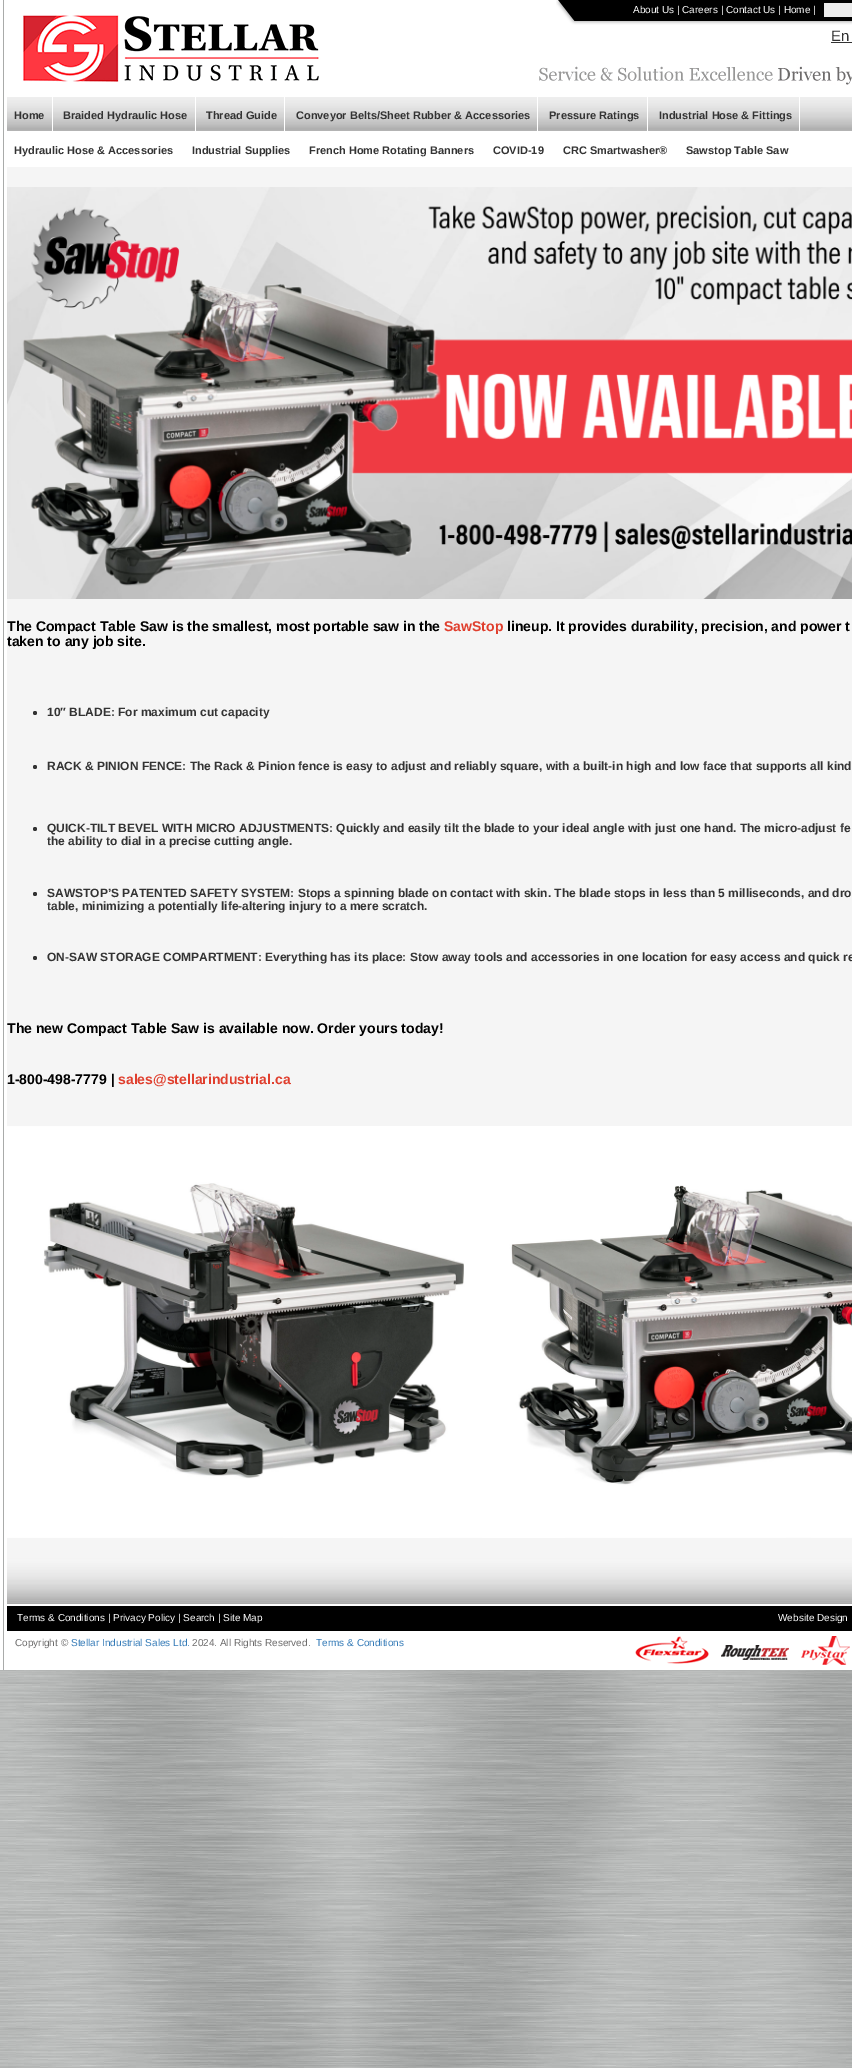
%!PS-Adobe-3.0
%%BoundingBox: 0 0 852 2068
%%LanguageLevel: 3
%%Pages: 1
%%EndComments
%%BeginProlog
/setink { dup -16 bitshift 255 div exch dup -8 bitshift 255 and 255 div exch 255 and 255 div setrgbcolor } def
/usefont { [ exch dup neg 0 0 3 -1 roll 0 0 ] selectfont } def
/disc { newpath 0 360 arc closepath } def
/drawimage { 5 dict begin { /h /w /y /x /name } { exch def } forall
  gsave x y translate w h scale
  w h 8 [w 0 0 h 0 0] name (r) file false 3 colorimage grestore end } def
%%EndProlog
%%BeginSetup
<< /PageSize [852 2068] >> setpagedevice
%%EndSetup
%%Page: 1 1
0 2068 translate 1 -1 scale
4 setmiterlimit
16#FFFFFF setink
0 0 852 2068 rectfill
(img1.raw) 0 1670 852 398 drawimage
(img2.raw) 0 0 852 1670 drawimage
(img3.raw) 22 15 830 70 drawimage
(img4.raw) 556 0 296 25 drawimage
/LiberationSans-Regular 10 usefont
633 13 moveto (About Us | Careers | Contact Us | Home |) show
16#EBEBEB setink
824 3 28 14 rectfill
/LiberationSans-Regular 15 usefont
16#333333 setink
831 41 moveto (En) show
831 42 21 1 rectfill
(img5.raw) 7 97 845 34 drawimage
16#FFFFFF setink
52 97 1 35 rectfill
/LiberationSans-Bold 11 usefont
16#333333 setink
14 119 moveto (Home) show
16#FFFFFF setink
195 97 1 35 rectfill
16#333333 setink
63 119 moveto (Braided Hydraulic Hose) show
16#FFFFFF setink
284 97 1 35 rectfill
16#333333 setink
206 119 moveto (Thread Guide) show
16#FFFFFF setink
537 97 1 35 rectfill
16#333333 setink
296 119 moveto (Conveyor Belts/Sheet Rubber & Accessories) show
16#FFFFFF setink
647 97 1 35 rectfill
16#333333 setink
549 119 moveto (Pressure Ratings) show
16#FFFFFF setink
799 97 1 35 rectfill
16#333333 setink
[
    [(Industrial Hose & Fittings) 659 119]
    [(Hydraulic Hose & Accessories) 14 154]
    [(Industrial Supplies) 192 154]
    [(French Home Rotating Banners) 309 154]
    [(COVID-19) 493 154]
    [(CRC Smartwasher®) 563 154]
    [(Sawstop Table Saw) 686 154]
] { aload pop moveto show } forall
16#F5F5F5 setink
7 167 845 1391 rectfill
(img6.raw) 7 187 845 412 drawimage
/LiberationSans-Bold 14 usefont
16#000000 setink
7 631 moveto (The Compact Table Saw is the smallest, most portable saw in the) show
16#E03E2D setink
444 631 moveto (SawStop) show
16#000000 setink
507 631 moveto (lineup. It provides durability, precision, and power t) show
7 646 moveto (taken to any job site.) show
16#333333 setink
35 713 2 disc fill
/LiberationSans-Bold 12 usefont
47 716 moveto (10″ BLADE: For maximum cut capacity) show
35 767 2 disc fill
47 770 moveto (RACK & PINION FENCE: The Rack & Pinion fence is easy to adjust and reliably square, with a built-in high and low face that supports all kind) show
35 829 2 disc fill
47 832 moveto (QUICK-TILT BEVEL WITH MICRO ADJUSTMENTS: Quickly and easily tilt the blade to your ideal angle with just one hand. The micro-adjust fe) show
47 845 moveto (the ability to dial in a precise cutting angle.) show
35 894 2 disc fill
47 897 moveto (SAWSTOP’S PATENTED SAFETY SYSTEM: Stops a spinning blade on contact with skin. The blade stops in less than 5 milliseconds, and dro) show
47 910 moveto (table, minimizing a potentially life-altering injury to a mere scratch.) show
35 958 2 disc fill
47 961 moveto (ON-SAW STORAGE COMPARTMENT: Everything has its place: Stow away tools and accessories in one location for easy access and quick re) show
/LiberationSans-Bold 14 usefont
16#000000 setink
7 1033 moveto (The new Compact Table Saw is available now. Order yours today!) show
7 1084 moveto (1-800-498-7779 |) show
16#E03E2D setink
118 1084 moveto (sales@stellarindustrial.ca) show
(img7.raw) 7 1126 845 412 drawimage
(img8.raw) 7 1558 845 46 drawimage
16#000000 setink
7 1606 845 25 rectfill
/LiberationSans-Regular 10 usefont
16#FFFFFF setink
17 1621 moveto (Terms & Conditions | Privacy Policy | Search | Site Map) show
778 1621 moveto (Website Design) show
16#6C6B6B setink
15 1646 moveto (Copyright ©) show
16#337AB7 setink
71 1646 moveto (Stellar Industrial Sales Ltd.) show
16#6C6B6B setink
192 1646 moveto (2024. All Rights Reserved.) show
16#337AB7 setink
316 1646 moveto (Terms & Conditions) show
(img9.raw) 635 1636 74 28 drawimage
(img10.raw) 721 1645 68 15 drawimage
(img11.raw) 801 1636 49 29 drawimage
showpage
%%EOF
